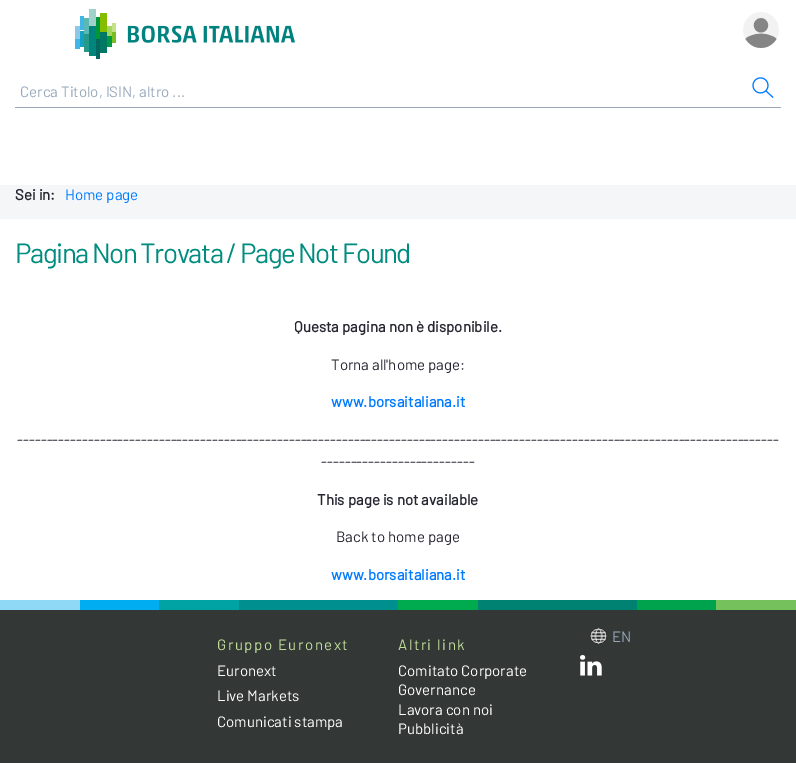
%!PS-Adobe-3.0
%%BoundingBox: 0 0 796 763
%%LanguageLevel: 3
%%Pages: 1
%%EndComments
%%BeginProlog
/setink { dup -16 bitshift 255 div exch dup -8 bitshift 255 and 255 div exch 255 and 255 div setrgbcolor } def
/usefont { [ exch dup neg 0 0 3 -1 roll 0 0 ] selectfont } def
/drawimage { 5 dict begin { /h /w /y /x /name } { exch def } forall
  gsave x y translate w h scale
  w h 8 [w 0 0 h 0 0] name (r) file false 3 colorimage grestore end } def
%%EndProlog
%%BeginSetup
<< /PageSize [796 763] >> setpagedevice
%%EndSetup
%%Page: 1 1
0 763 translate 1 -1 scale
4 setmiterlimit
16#FFFFFF setink
0 0 796 763 rectfill
(img1.raw) 75 9 220 50 drawimage
(img2.raw) 743 12 36 36 drawimage
16#98A9BC setink
15 107 766 1 rectfill
/Barlow-Regular 15 usefont
20 97 moveto (Cerca Titolo, ISIN, altro ...) show
(img3.raw) 752 77 22 21 drawimage
16#F5F6F7 setink
0 185 796 34 rectfill
/Barlow-Bold 15 usefont
16#252631 setink
15 200 moveto (Sei in:) show
/Barlow-Regular 15 usefont
16#007AFF setink
65 200 moveto (Home page) show
/Barlow-Regular 27.75 usefont
16#008D7F setink
15 263 moveto -1.5 0 (Pagina Non Trovata / Page Not Found) ashow
/Barlow-Bold 15 usefont
16#252631 setink
294 332 moveto (Questa pagina non è disponibile.) show
/Barlow-Regular 15 usefont
331 370 moveto (Torna all'home page:) show
/Barlow-Bold 15 usefont
16#007AFF setink
331 407 moveto (www.borsaitaliana.it) show
/Barlow-Regular 15 usefont
16#252631 setink
17 445 moveto (---------------------------------------------------------------------------------------------------------------------------------) show
321 467 moveto (--------------------------) show
/Barlow-Bold 15 usefont
317 505 moveto (This page is not available) show
/Barlow-Regular 15 usefont
336 542 moveto (Back to home page) show
/Barlow-Bold 15 usefont
16#007AFF setink
331 580 moveto (www.borsaitaliana.it) show
[
    [0 600 80 10 16#8FD9F7]
    [80 600 79 10 16#00ADF0]
    [159 600 80 10 16#00A3A3]
    [239 600 159 10 16#008F8F]
    [398 600 80 10 16#00AB4F]
    [478 600 159 10 16#008273]
    [637 600 79 10 16#00A34D]
    [716 600 80 10 16#75C25C]
    [0 610 796 153 16#333836]
] { aload pop setink rectfill } forall
(img4.raw) 590 628 17 16 drawimage
/Barlow-Regular 15 usefont
16#98A9BC setink
612 642 moveto (EN) show
(img5.raw) 580 655 22 21 drawimage
16#C1DE9B setink
217 650 moveto 1.5 0 (Gruppo Euronext) ashow
16#FFFFFF setink
[
    [(Euronext) 217 676]
    [(Live Markets) 217 701]
    [(Comunicati stampa) 217 727]
] { aload pop moveto show } forall
16#C1DE9B setink
398 650 moveto 1.5 0 (Altri link) ashow
16#FFFFFF setink
[
    [(Comitato Corporate) 398 676]
    [(Governance) 398 695]
    [(Lavora con noi) 398 715]
    [(Pubblicità) 398 734]
] { aload pop moveto show } forall
showpage
%%EOF
